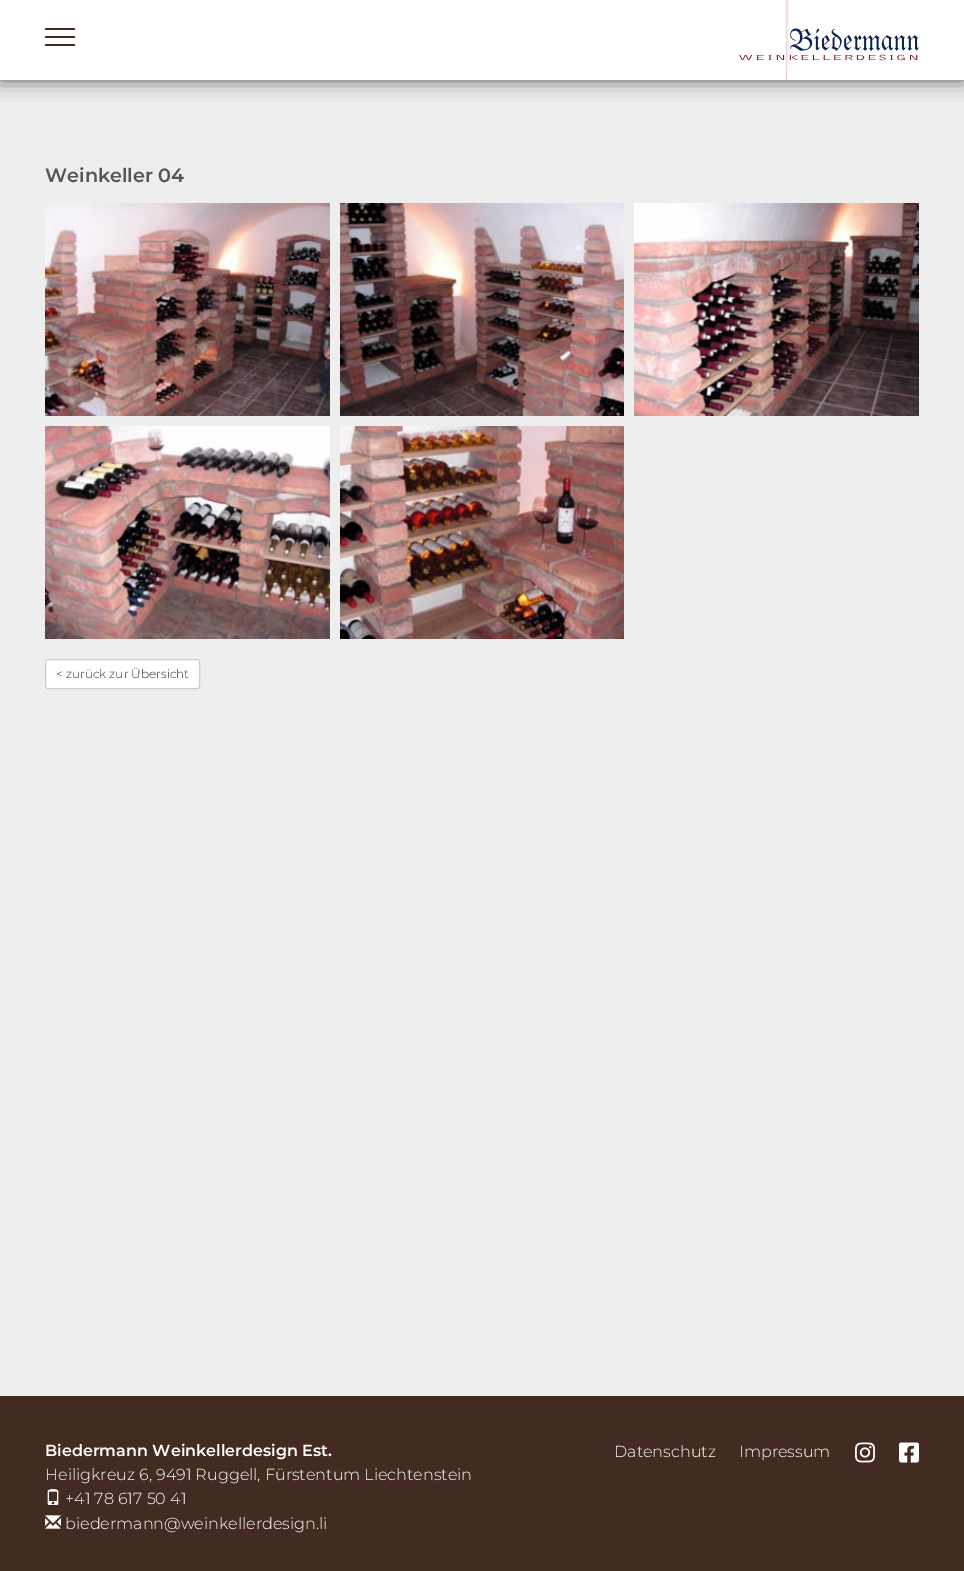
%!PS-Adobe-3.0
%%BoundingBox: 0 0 964 1571
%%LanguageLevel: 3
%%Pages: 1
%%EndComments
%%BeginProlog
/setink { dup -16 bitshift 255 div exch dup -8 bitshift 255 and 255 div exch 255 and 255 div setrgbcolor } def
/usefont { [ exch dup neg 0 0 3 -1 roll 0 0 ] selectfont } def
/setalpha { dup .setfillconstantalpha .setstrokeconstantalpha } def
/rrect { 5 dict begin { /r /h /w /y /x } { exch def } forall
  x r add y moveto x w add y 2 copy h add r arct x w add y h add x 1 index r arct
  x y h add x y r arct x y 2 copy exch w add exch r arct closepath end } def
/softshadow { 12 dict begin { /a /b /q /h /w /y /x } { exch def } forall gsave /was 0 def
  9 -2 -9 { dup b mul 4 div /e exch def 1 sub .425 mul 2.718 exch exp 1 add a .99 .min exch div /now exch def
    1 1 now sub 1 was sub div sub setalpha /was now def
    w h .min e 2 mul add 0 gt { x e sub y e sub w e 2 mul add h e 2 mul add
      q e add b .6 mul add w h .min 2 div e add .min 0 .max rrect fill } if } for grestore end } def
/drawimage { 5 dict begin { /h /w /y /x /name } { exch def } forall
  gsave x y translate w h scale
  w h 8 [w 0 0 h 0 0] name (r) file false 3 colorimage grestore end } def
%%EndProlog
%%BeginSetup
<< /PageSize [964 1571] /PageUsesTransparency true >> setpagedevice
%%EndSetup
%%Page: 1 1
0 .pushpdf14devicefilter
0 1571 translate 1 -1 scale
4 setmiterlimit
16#EEEEEE setink
0 0 964 1571 rectfill
16#555555 setink
0 0 964 80 0 10 1 softshadow
16#FFFFFF setink
0 0 964 80 rectfill
16#432B21 setink
45 28 30 2 1 rrect fill
45 36 30 2 1 rrect fill
45 44 30 2 1 rrect fill
(img1.raw) 739 0 180 80 drawimage
/Montserrat-SemiBold 19.25 usefont
16#555555 setink
45 182 moveto (Weinkeller 04) show
(img2.raw) 45 203 285 213 drawimage
(img3.raw) 340 203 284 213 drawimage
(img4.raw) 634 203 285 213 drawimage
(img5.raw) 45 426 285 213 drawimage
(img6.raw) 340 426 284 213 drawimage
16#FFFFFF setink
45.5 659.5 154 29 2.5 rrect gsave fill grestore
16#CCCCCC setink
stroke
/Montserrat-Light 12 usefont
16#333333 setink
56 678 moveto (< zurück zur Übersicht) show
16#432B21 setink
0 1396 964 175 rectfill
/Montserrat-SemiBold 16 usefont
16#FFFFFF setink
45 1456 moveto (Biedermann Weinkellerdesign Est.) show
/Montserrat-Light 16 usefont
45 1480 moveto (Heiligkreuz 6, 9491 Ruggell, Fürstentum Liechtenstein) show
(img7.raw) 47 1489 12 16 drawimage
65 1504 moveto (+41 78 617 50 41) show
(img8.raw) 45 1515 16 14 drawimage
[
    [(biedermann@weinkellerdesign.li) 65 1529]
    [(Datenschutz) 614 1457]
    [(Impressum) 739 1457]
] { aload pop moveto show } forall
(img9.raw) 855 1442 20 21 drawimage
(img10.raw) 899 1442 20 21 drawimage
.poppdf14devicefilter showpage
%%EOF
